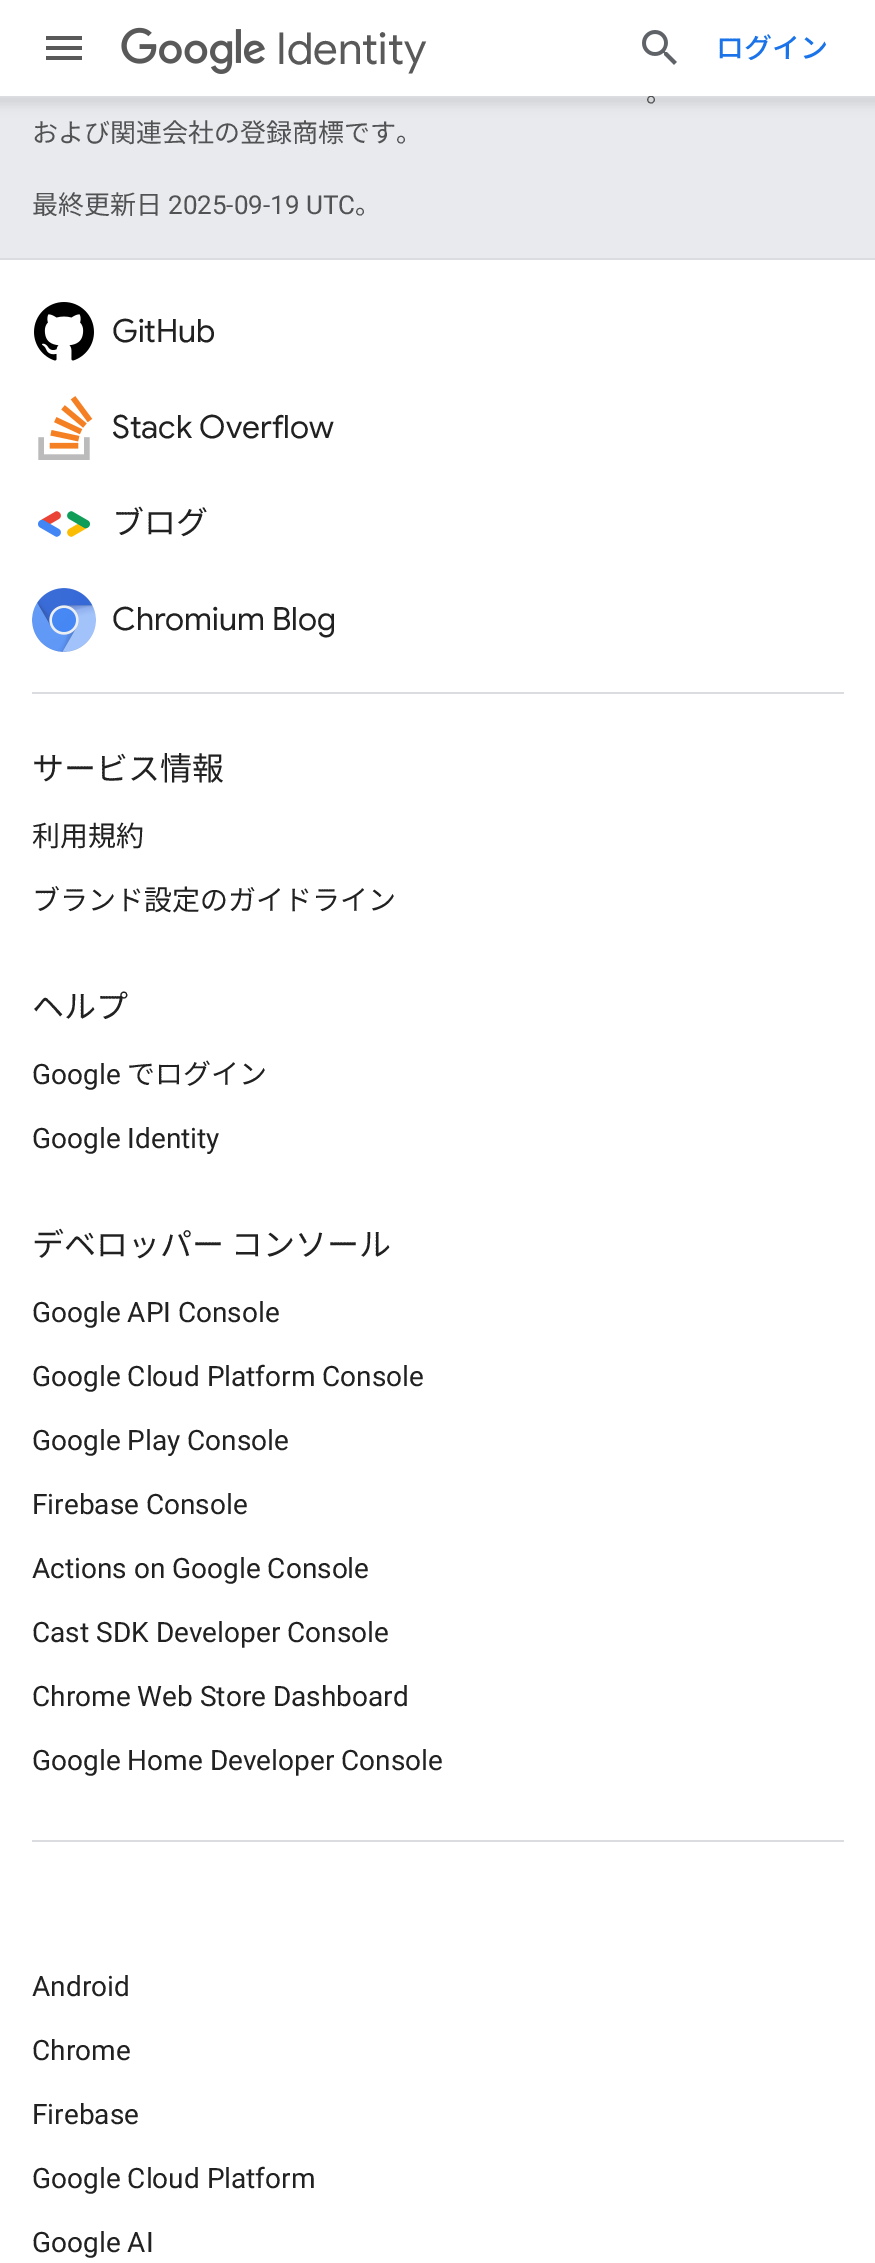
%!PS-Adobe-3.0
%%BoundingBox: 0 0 875 2263
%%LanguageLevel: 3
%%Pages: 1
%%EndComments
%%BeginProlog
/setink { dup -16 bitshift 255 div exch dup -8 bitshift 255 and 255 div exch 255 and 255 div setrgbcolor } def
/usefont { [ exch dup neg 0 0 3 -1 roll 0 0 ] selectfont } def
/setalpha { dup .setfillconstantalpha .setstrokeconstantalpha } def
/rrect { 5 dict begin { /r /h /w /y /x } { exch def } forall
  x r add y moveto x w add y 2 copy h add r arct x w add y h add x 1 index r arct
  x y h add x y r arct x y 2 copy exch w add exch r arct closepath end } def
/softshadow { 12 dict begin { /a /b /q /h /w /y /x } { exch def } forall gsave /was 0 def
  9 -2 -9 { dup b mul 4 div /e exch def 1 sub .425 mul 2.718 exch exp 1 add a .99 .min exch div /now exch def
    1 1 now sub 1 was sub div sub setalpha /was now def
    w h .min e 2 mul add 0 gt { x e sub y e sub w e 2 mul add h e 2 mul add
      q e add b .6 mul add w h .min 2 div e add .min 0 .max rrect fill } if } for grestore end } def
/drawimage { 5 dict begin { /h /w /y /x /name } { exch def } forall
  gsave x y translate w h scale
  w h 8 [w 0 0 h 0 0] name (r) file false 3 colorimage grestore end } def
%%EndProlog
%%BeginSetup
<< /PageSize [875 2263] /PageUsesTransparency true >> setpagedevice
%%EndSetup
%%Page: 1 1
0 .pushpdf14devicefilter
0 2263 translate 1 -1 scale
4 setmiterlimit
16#E8EAED setink
0 0 875 2263 rectfill
16#3C4043 setink
-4 96 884 8 0 6 0.15 softshadow
/NotoSansJP-Regular 26 usefont
16#515253 setink
646 102 moveto (。) show
16#FFFFFF setink
0 0 875 96 rectfill
16#595959 setink
46 36 moveto 82 36 lineto 82 40 lineto 46 40 lineto closepath 46 50 moveto 46 46 lineto 82 46 lineto 82 50 lineto closepath 46 60 moveto 46 56 lineto 82 56 lineto 82 60 lineto closepath fill
(img1.raw) 121 27 144 47 drawimage
/GoogleSans-Regular 44 usefont
276 64 moveto (Identity) show
(img2.raw) 642 30 35 35 drawimage
/NotoSansJP-Medium 28 usefont
16#1A73E8 setink
716 58 moveto (ログイン) show
/NotoSansJP-Regular 26 usefont
16#515253 setink
32 142 moveto (および関連会社の登録商標です。) show
32 214 moveto (最終更新日) show
/Roboto-Regular 26 usefont
168 214 moveto (2025-09-19 UTC) show
/NotoSansJP-Regular 26 usefont
355 214 moveto (。) show
[
    [0 260 875 2003 16#FFFFFF]
    [0 258 875 2 16#DADCE0]
    [32 692 812 2 16#DADCE0]
] { aload pop setink rectfill } forall
(img3.raw) 34 302 60 59 drawimage
/GoogleSans-Regular 32 usefont
16#212121 setink
112 342 moveto (GitHub) show
(img4.raw) 38 396 55 64 drawimage
112 438 moveto (Stack Overflow) show
(img5.raw) 38 511 52 26 drawimage
/NotoSansJP-Regular 32 usefont
112 534 moveto (ブログ) show
(img6.raw) 32 588 64 64 drawimage
/GoogleSans-Regular 32 usefont
112 630 moveto (Chromium Blog) show
16#DADCE0 setink
32 1840 812 2 rectfill
/NotoSansJP-Regular 32 usefont
16#212121 setink
32 780 moveto (サービス情報) show
/NotoSansJP-Regular 28 usefont
32 846 moveto (利用規約) show
32 910 moveto (ブランド設定のガイドライン) show
/NotoSansJP-Regular 32 usefont
32 1018 moveto (ヘルプ) show
/Roboto-Regular 28 usefont
32 1084 moveto (Google) show
/NotoSansJP-Regular 28 usefont
127 1084 moveto (でログイン) show
/Roboto-Regular 28 usefont
32 1148 moveto (Google Identity) show
/NotoSansJP-Regular 32 usefont
32 1256 moveto (デベロッパー コンソール) show
/Roboto-Regular 28 usefont
[
    [(Google API Console) 32 1322]
    [(Google Cloud Platform Console) 32 1386]
    [(Google Play Console) 32 1450]
    [(Firebase Console) 32 1514]
    [(Actions on Google Console) 32 1578]
    [(Cast SDK Developer Console) 32 1642]
    [(Chrome Web Store Dashboard) 32 1706]
    [(Google Home Developer Console) 32 1770]
    [(Android) 32 1996]
    [(Chrome) 32 2060]
    [(Firebase) 32 2124]
    [(Google Cloud Platform) 32 2188]
    [(Google AI) 32 2252]
] { aload pop moveto show } forall
.poppdf14devicefilter showpage
%%EOF
